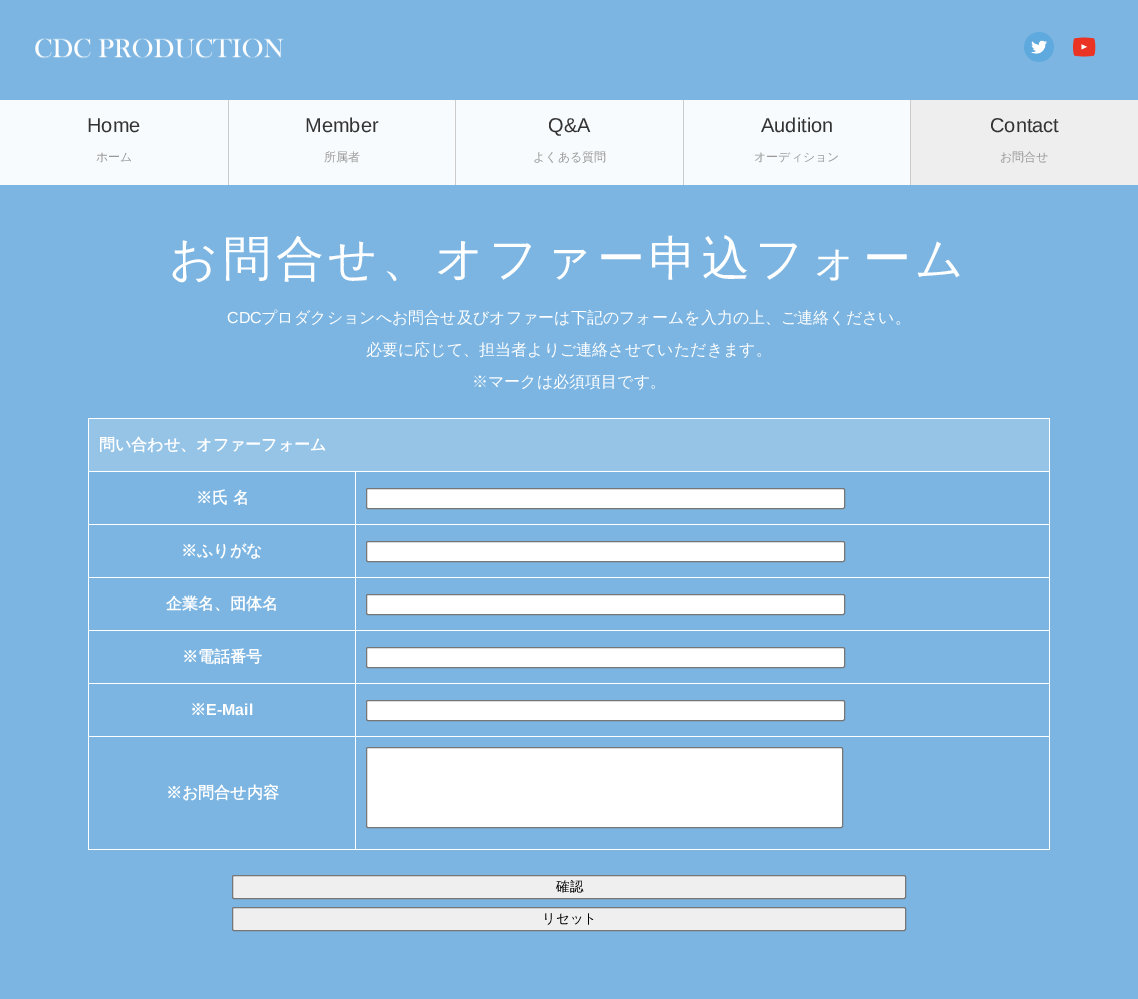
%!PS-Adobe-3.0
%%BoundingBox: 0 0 1138 999
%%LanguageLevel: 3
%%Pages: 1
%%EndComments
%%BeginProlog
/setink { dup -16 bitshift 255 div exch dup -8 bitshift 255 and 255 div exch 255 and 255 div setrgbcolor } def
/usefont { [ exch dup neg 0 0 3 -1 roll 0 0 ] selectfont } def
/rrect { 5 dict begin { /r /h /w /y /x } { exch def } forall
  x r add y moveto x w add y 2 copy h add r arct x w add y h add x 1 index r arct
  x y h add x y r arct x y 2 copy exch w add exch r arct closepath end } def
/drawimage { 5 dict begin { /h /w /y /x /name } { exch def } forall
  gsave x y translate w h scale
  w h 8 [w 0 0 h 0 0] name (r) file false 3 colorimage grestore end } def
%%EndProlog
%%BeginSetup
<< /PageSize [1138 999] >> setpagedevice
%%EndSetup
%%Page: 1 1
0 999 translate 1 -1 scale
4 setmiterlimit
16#7CB5E1 setink
0 0 1138 999 rectfill
(img1.raw) 35 38 249 21 drawimage
(img2.raw) 1024 32 30 30 drawimage
(img3.raw) 1073 37 23 20 drawimage
16#F8FBFD setink
0 100 910 85 rectfill
/LiberationSans-Regular 20 usefont
16#333333 setink
87 132 moveto (Home) show
/WenQuanYiZenHei-Medium 12 usefont
16#999999 setink
96 161 moveto (ホーム) show
16#CCCCCC setink
228 100 1 85 rectfill
/LiberationSans-Regular 20 usefont
16#333333 setink
305 132 moveto (Member) show
/WenQuanYiZenHei-Medium 12 usefont
16#999999 setink
324 161 moveto (所属者) show
16#CCCCCC setink
455 100 1 85 rectfill
/LiberationSans-Regular 20 usefont
16#333333 setink
548 132 moveto (Q&A) show
/WenQuanYiZenHei-Medium 12 usefont
16#999999 setink
533 161 moveto (よくある質問) show
16#CCCCCC setink
683 100 1 85 rectfill
/LiberationSans-Regular 20 usefont
16#333333 setink
761 132 moveto (Audition) show
/WenQuanYiZenHei-Medium 12 usefont
16#999999 setink
754 161 moveto (オーディション) show
16#EEEEEE setink
911 100 227 85 rectfill
16#CCCCCC setink
910 100 1 85 rectfill
/LiberationSans-Regular 20 usefont
16#333333 setink
990 132 moveto (Contact) show
/WenQuanYiZenHei-Medium 12 usefont
16#999999 setink
1000 161 moveto (お問合せ) show
/WenQuanYiZenHei-Medium 48 usefont
16#FFFFFF setink
169 275 moveto 4.75 0 (お問合せ、オファー申込フォーム) ashow
/LiberationSans-Regular 16 usefont
227 323 moveto (CDC) show
/WenQuanYiZenHei-Medium 16 usefont
[
    [(プロダクションへお問合せ及びオファーは下記のフォームを入力の上、ご連絡ください。) 261 323]
    [(必要に応じて、担当者よりご連絡させていただきます。) 366 355]
    [(※マークは必須項目です。) 472 387]
] { aload pop moveto show } forall
[
    [88 418 962 1 16#FFFFFF]
    [1049 418 1 432 16#FFFFFF]
    [88 849 962 1 16#FFFFFF]
    [88 418 1 432 16#FFFFFF]
    [89 419 960 52 16#96C4E7]
] { aload pop setink rectfill } forall
/WenQuanYiZenHei-Bold 16 usefont
16#FFFFFF setink
99 450 moveto (問い合わせ、オファーフォーム) show
[
    [355 471 695 1 16#FFFFFF]
    [355 524 695 1 16#FFFFFF]
    [355 577 695 1 16#FFFFFF]
    [355 630 695 1 16#FFFFFF]
    [355 683 695 1 16#FFFFFF]
    [355 736 695 1 16#FFFFFF]
    [355 736 1 114 16#FFFFFF]
    [88 736 268 1 16#FFFFFF]
    [355 683 1 54 16#FFFFFF]
    [88 683 268 1 16#FFFFFF]
    [355 630 1 54 16#FFFFFF]
    [88 630 268 1 16#FFFFFF]
    [355 577 1 54 16#FFFFFF]
    [88 577 268 1 16#FFFFFF]
    [355 524 1 54 16#FFFFFF]
    [88 524 268 1 16#FFFFFF]
    [355 471 1 54 16#FFFFFF]
    [88 471 268 1 16#FFFFFF]
] { aload pop setink rectfill } forall
196 503 moveto (※氏 名) show
366.5 488.5 478 20 1.5 rrect gsave fill grestore
16#767676 setink
stroke
16#FFFFFF setink
181 556 moveto (※ふりがな) show
366.5 541.5 478 20 1.5 rrect gsave fill grestore
16#767676 setink
stroke
16#FFFFFF setink
166 609 moveto (企業名、団体名) show
366.5 594.5 478 20 1.5 rrect gsave fill grestore
16#767676 setink
stroke
16#FFFFFF setink
182 662 moveto (※電話番号) show
366.5 647.5 478 20 1.5 rrect gsave fill grestore
16#767676 setink
stroke
16#FFFFFF setink
190 715 moveto (※) show
/LiberationSans-Bold 16 usefont
206 715 moveto (E-Mail) show
366.5 700.5 478 20 1.5 rrect gsave fill grestore
16#767676 setink
stroke
/WenQuanYiZenHei-Bold 16 usefont
16#FFFFFF setink
166 798 moveto (※お問合せ内容) show
366.5 747.5 476 80 1.5 rrect gsave fill grestore
16#767676 setink
stroke
16#EFEFEF setink
232.5 875.5 673 23 1.5 rrect gsave fill grestore
16#767676 setink
stroke
/WenQuanYiZenHei-Medium 13.5 usefont
16#000000 setink
556 891 moveto (確認) show
16#EFEFEF setink
232.5 907.5 673 23 1.5 rrect gsave fill grestore
16#767676 setink
stroke
16#000000 setink
542 923 moveto (リセット) show
showpage
%%EOF
